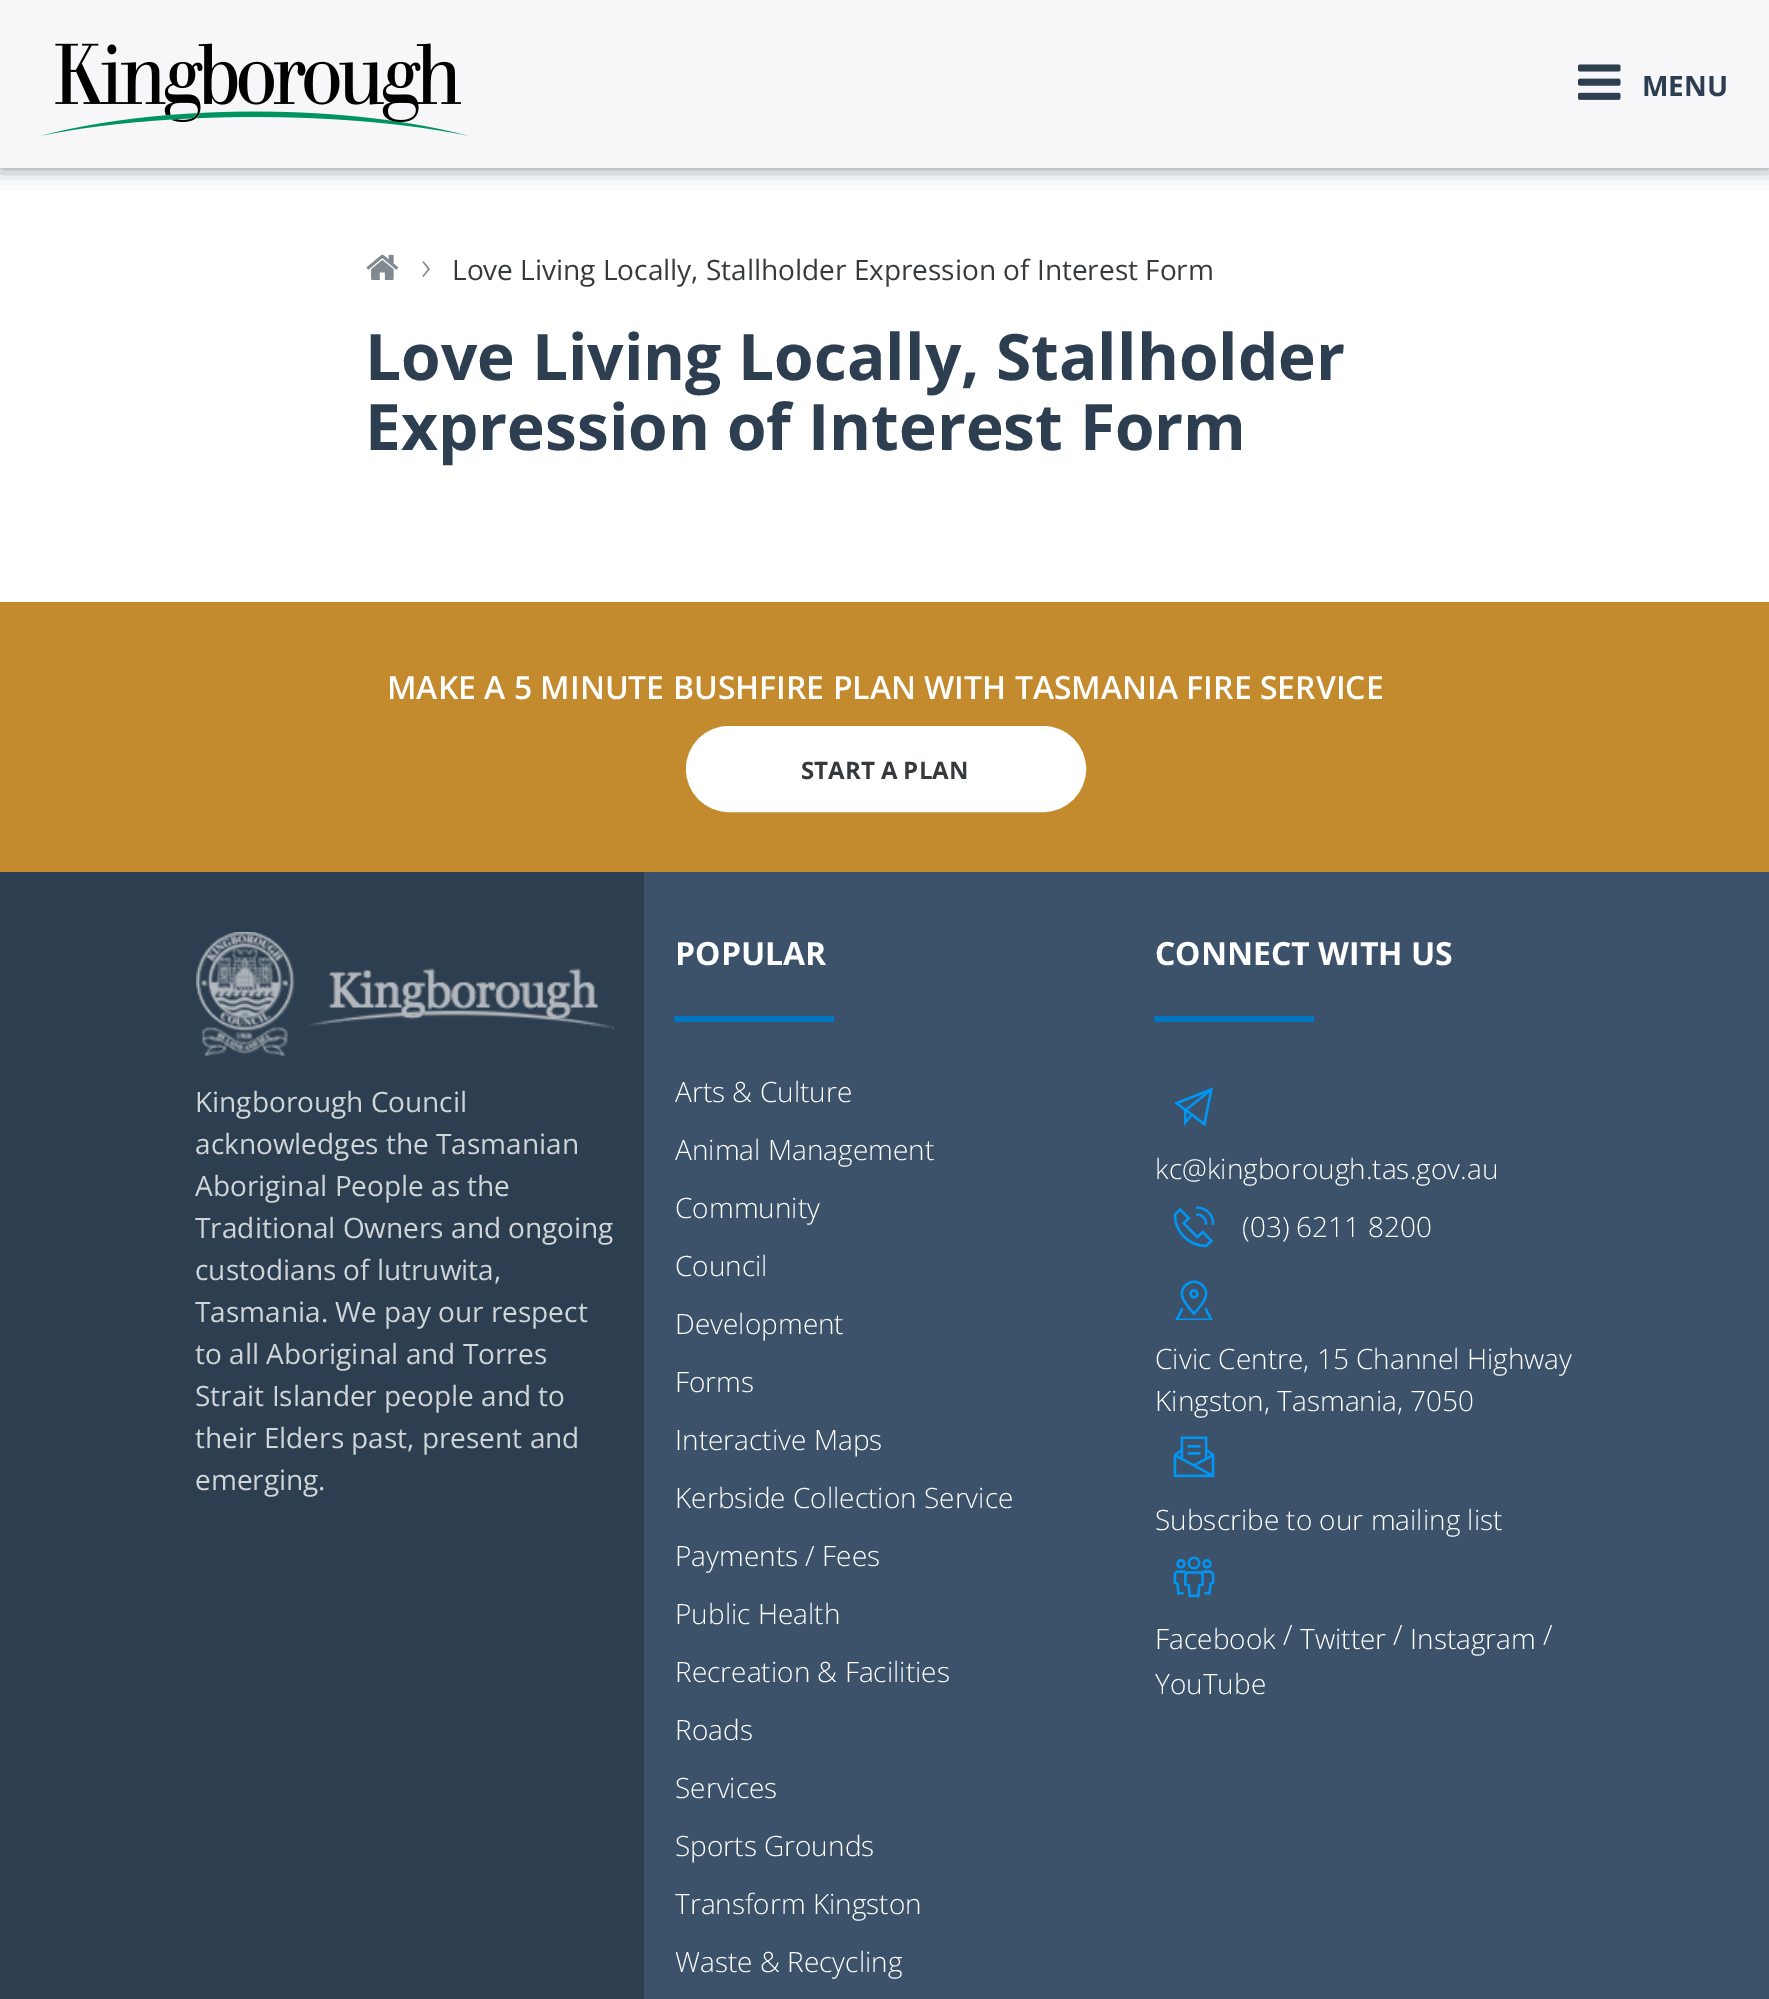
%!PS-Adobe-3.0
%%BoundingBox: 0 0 1769 1999
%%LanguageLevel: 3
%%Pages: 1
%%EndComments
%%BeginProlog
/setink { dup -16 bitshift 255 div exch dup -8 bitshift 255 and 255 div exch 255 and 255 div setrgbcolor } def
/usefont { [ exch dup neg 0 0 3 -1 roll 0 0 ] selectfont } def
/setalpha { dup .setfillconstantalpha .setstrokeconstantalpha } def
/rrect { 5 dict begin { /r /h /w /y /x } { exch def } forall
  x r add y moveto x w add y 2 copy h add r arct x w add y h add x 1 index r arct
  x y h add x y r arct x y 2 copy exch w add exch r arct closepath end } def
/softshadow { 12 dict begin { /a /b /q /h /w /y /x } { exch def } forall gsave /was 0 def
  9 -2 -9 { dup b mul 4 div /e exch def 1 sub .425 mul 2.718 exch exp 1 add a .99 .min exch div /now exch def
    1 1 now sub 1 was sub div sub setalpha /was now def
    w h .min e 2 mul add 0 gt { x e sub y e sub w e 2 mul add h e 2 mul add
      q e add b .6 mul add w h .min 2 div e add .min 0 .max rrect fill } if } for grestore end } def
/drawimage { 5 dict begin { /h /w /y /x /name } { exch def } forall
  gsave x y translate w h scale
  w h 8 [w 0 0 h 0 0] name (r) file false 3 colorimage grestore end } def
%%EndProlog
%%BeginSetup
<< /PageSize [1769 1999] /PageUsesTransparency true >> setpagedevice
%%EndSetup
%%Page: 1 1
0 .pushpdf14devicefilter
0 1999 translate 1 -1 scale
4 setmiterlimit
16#FFFFFF setink
0 0 1769 1999 rectfill
16#818A91 setink
0 0 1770 168 0 10 1 softshadow
16#F7F7F9 setink
0 0 1769 168 rectfill
(img1.raw) 40 43 429 93 drawimage
(img2.raw) 1578 64 43 36 drawimage
/OpenSans-Bold 28 usefont
16#2D3E50 setink
1642 96 moveto (MENU) show
(img3.raw) 366 254 33 26 drawimage
/OpenSans-Light 40 usefont
16#818A91 setink
421 280 moveto (›) show
/OpenSans-Regular 28 usefont
16#373A3C setink
452 280 moveto (Love Living Locally, Stallholder Expression of Interest Form) show
/OpenSans-Bold 64 usefont
16#2D3E50 setink
365 380 moveto (Love Living Locally, Stallholder) show
365 450 moveto (Expression of Interest Form) show
16#C38A2E setink
0 602 1769 270 rectfill
/OpenSans-SemiBold 32 usefont
16#FFFFFF setink
387 699 moveto (MAKE A 5 MINUTE BUSHFIRE PLAN WITH TASMANIA FIRE SERVICE) show
688 728 396 82 41 rrect gsave fill grestore
4 setlinewidth
stroke
/OpenSans-Bold 24 usefont
16#373A3C setink
801 779 moveto (START A PLAN) show
16#3B526A setink
644 872 1125 1127 rectfill
16#2D3E50 setink
0 872 644 1127 rectfill
(img4.raw) 196 932 418 124 drawimage
/OpenSans-Regular 28 usefont
16#D0D5D8 setink
[
    [(Kingborough Council) 195 1112]
    [(acknowledges the Tasmanian) 195 1154]
    [(Aboriginal People as the) 195 1196]
    [(Traditional Owners and ongoing) 195 1238]
    [(custodians of lutruwita,) 195 1280]
    [(Tasmania. We pay our respect) 195 1322]
    [(to all Aboriginal and Torres) 195 1364]
    [(Strait Islander people and to) 195 1406]
    [(their Elders past, present and) 195 1448]
    [(emerging.) 195 1490]
] { aload pop moveto show } forall
/OpenSans-Bold 32 usefont
16#FFFFFF setink
675 965 moveto (POPULAR) show
16#0177C1 setink
674 1016 160 6 rectfill
/OpenSans-Light 28 usefont
16#FFFFFF setink
[
    [(Arts & Culture) 675 1102]
    [(Animal Management) 675 1160]
    [(Community) 675 1218]
    [(Council) 675 1276]
    [(Development) 675 1334]
    [(Forms) 675 1392]
    [(Interactive Maps) 675 1450]
    [(Kerbside Collection Service) 675 1508]
    [(Payments / Fees) 675 1566]
    [(Public Health) 675 1624]
    [(Recreation & Facilities) 675 1682]
    [(Roads) 675 1740]
    [(Services) 675 1798]
    [(Sports Grounds) 675 1856]
    [(Transform Kingston) 675 1914]
    [(Waste & Recycling) 675 1972]
] { aload pop moveto show } forall
/OpenSans-Bold 32 usefont
1155 965 moveto (CONNECT WITH US) show
16#0177C1 setink
1154 1016 160 6 rectfill
(img5.raw) 1174 1087 39 40 drawimage
/OpenSans-Light 28 usefont
16#FFFFFF setink
1155 1179 moveto (kc@kingborough.tas.gov.au) show
(img6.raw) 1173 1206 42 42 drawimage
1242 1237 moveto (\(03\) 6211 8200) show
(img7.raw) 1175 1280 38 40 drawimage
1155 1369 moveto (Civic Centre, 15 Channel Highway) show
1155 1411 moveto (Kingston, Tasmania, 7050) show
(img8.raw) 1173 1436 42 42 drawimage
1155 1530 moveto (Subscribe to our mailing list) show
(img9.raw) 1173 1556 42 42 drawimage
[
    [(Facebook) 1155 1649]
    [(/) 1283 1645]
    [(Twitter) 1300 1649]
    [(/) 1393 1645]
    [(Instagram) 1410 1649]
    [(/) 1543 1645]
    [(YouTube) 1155 1694]
] { aload pop moveto show } forall
.poppdf14devicefilter showpage
%%EOF
